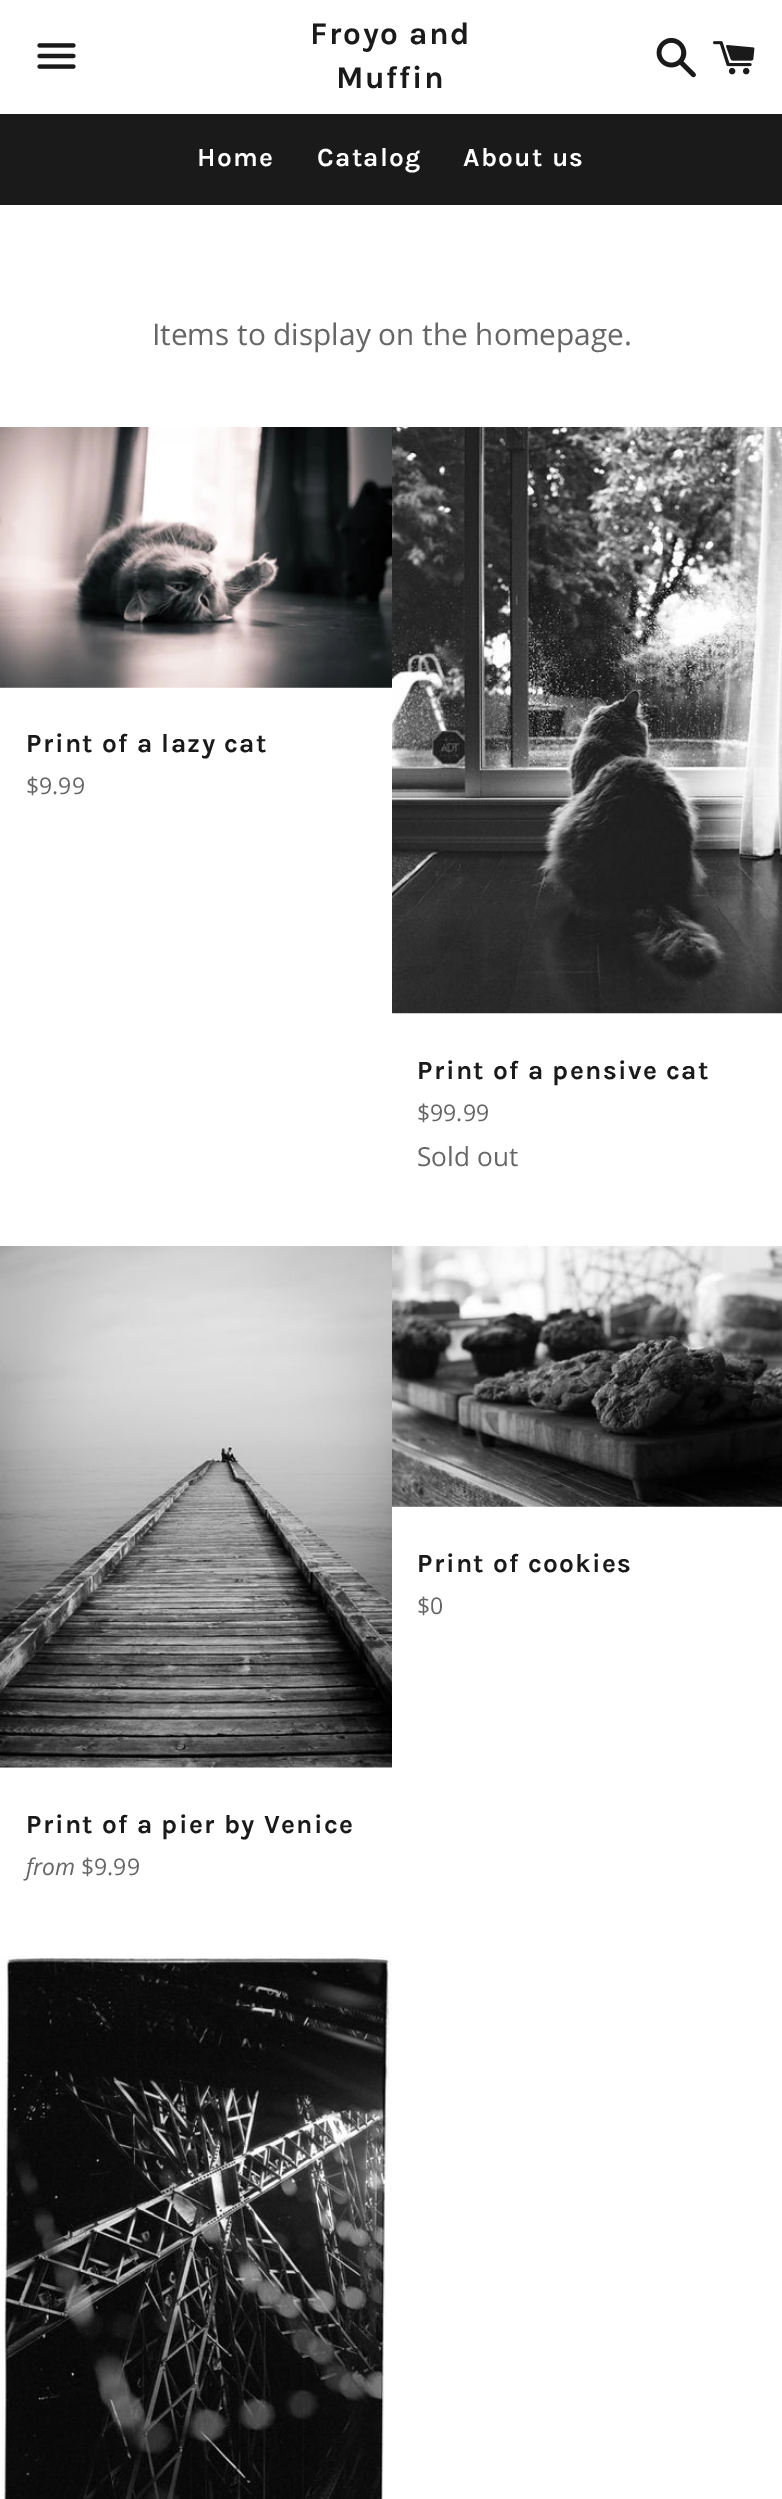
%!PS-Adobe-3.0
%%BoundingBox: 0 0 782 2499
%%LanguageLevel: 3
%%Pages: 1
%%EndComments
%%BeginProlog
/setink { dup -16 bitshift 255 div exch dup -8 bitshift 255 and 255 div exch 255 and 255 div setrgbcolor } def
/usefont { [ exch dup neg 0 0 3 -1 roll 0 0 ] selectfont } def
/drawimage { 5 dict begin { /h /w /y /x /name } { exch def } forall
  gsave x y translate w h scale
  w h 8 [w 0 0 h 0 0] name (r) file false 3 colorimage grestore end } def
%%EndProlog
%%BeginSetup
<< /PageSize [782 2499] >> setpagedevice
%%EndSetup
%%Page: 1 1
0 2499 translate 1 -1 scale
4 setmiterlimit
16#FFFFFF setink
0 0 782 2499 rectfill
(img1.raw) 37 43 39 26 drawimage
/Karla-Bold 31.5 usefont
16#1A1A1A setink
310 44 moveto 1.5 0 (Froyo and) ashow
336 88 moveto 1.5 0 (Muffin) ashow
(img2.raw) 656 37 40 41 drawimage
(img3.raw) 713 41 42 34 drawimage
0 114 782 91 rectfill
/Karla-Bold 26.25 usefont
16#FFFFFF setink
197 166 moveto 1.3 0 (Home) ashow
317 166 moveto 1.3 0 (Catalog) ashow
463 166 moveto 1.3 0 (About us) ashow
/OpenSans-Regular 29.75 usefont
16#666666 setink
152 345 moveto (Items to display on the homepage.) show
(img4.raw) 0 427 392 261 drawimage
/Karla-Bold 26.25 usefont
16#1A1A1A setink
26 752 moveto 1.3 0 (Print of a lazy cat) ashow
/OpenSans-Regular 23 usefont
16#666666 setink
26 794 moveto ($9.99) show
(img5.raw) 392 427 390 587 drawimage
/Karla-Bold 26.25 usefont
16#1A1A1A setink
417 1079 moveto 1.3 0 (Print of a pensive cat) ashow
/OpenSans-Regular 23 usefont
16#666666 setink
417 1121 moveto ($99.99) show
/OpenSans-Regular 26.25 usefont
417 1166 moveto (Sold out) show
(img6.raw) 392 1246 390 261 drawimage
/Karla-Bold 26.25 usefont
16#1A1A1A setink
417 1572 moveto 1.3 0 (Print of cookies) ashow
/OpenSans-Regular 23 usefont
16#666666 setink
417 1614 moveto ($0) show
(img7.raw) 0 1246 392 522 drawimage
/Karla-Bold 26.25 usefont
16#1A1A1A setink
26 1833 moveto 1.3 0 (Print of a pier by Venice) ashow
/OpenSans-Italic 23 usefont
16#666666 setink
26 1875 moveto (from) show
/OpenSans-Regular 23 usefont
81 1875 moveto ($9.99) show
(img8.raw) 1 1955 391 544 drawimage
showpage
%%EOF
